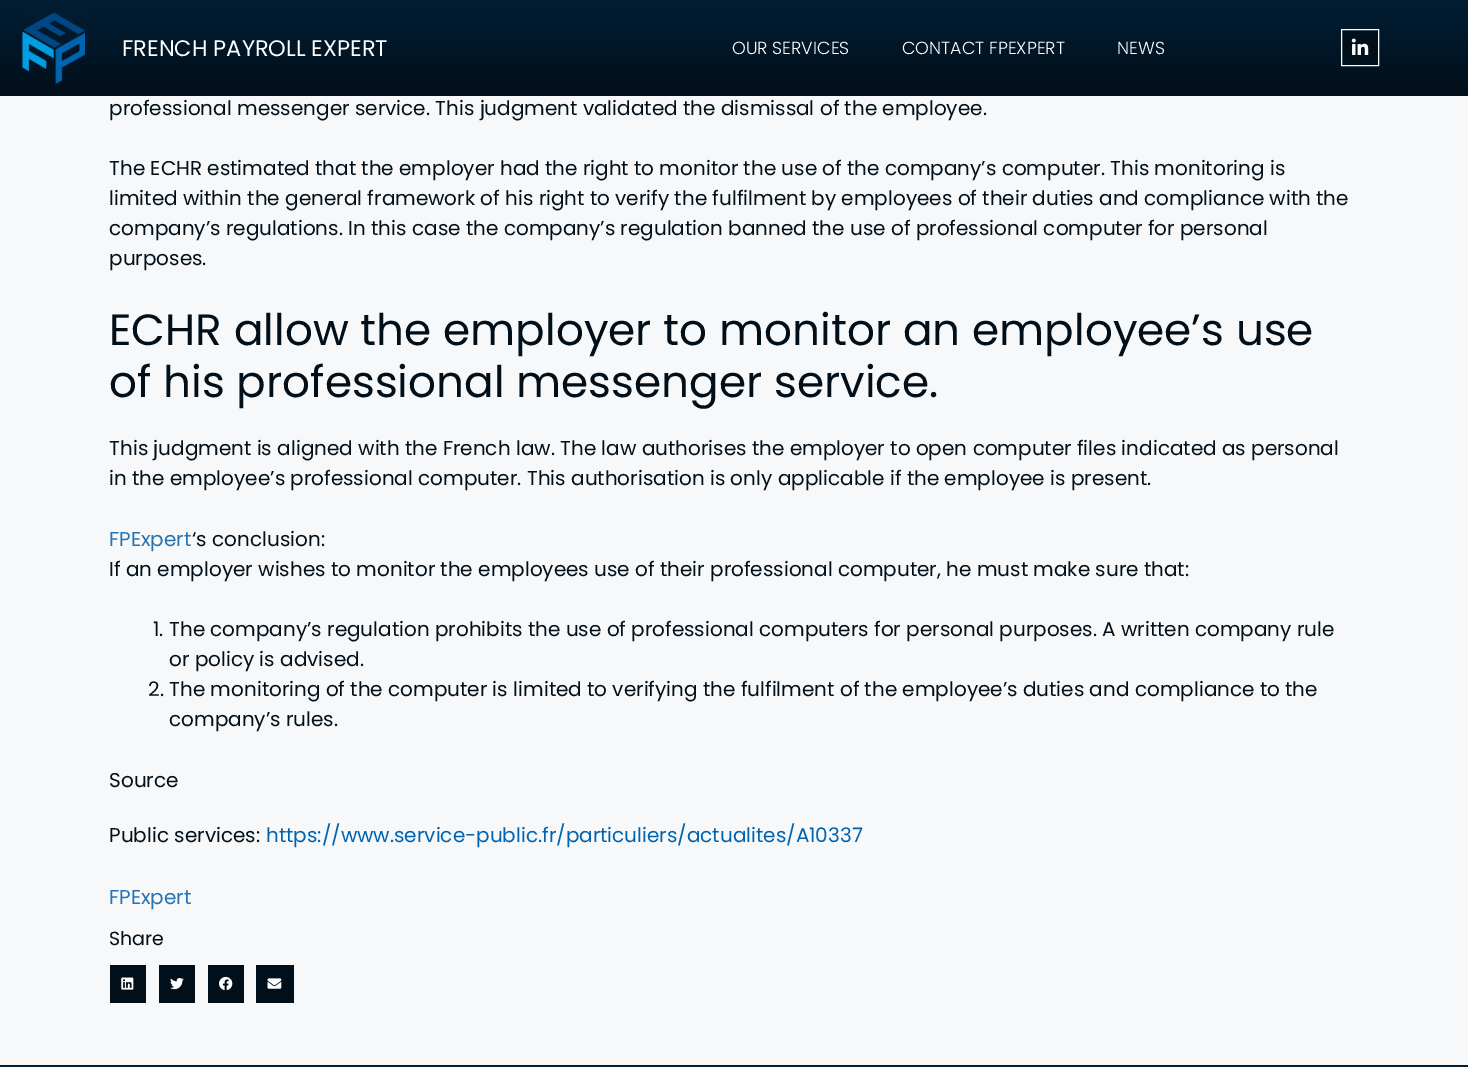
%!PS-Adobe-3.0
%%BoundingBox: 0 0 1468 1067
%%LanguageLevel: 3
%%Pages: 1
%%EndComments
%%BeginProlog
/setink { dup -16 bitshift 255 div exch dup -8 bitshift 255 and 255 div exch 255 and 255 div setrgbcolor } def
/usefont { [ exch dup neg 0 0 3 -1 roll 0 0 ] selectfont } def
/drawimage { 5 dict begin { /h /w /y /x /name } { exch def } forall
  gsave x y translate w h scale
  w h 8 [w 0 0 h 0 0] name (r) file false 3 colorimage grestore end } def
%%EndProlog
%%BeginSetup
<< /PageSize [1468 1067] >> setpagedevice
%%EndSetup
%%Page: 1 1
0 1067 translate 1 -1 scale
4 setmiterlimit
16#F7F8F9 setink
0 0 1468 1067 rectfill
gsave 0 0 moveto 1468 0 lineto 1468 96 lineto 0 96 lineto closepath clip newpath
<< /ShadingType 2 /ColorSpace /DeviceRGB /Coords [734 96 734 0] /Extend [true true] /Function << /FunctionType 2 /Domain [0 1] /C0 [0.004 0.059 0.102] /C1 [0.008 0.118 0.208] /N 1 >> >> shfill grestore
(img1.raw) 22 12 63 72 drawimage
/Poppins-Regular 22.5 usefont
16#FFFFFF setink
122 56 moveto (FRENCH PAYROLL EXPERT) show
/Poppins-Light 17.5 usefont
[
    [(OUR SERVICES) 732 54]
    [(CONTACT FPEXPERT) 902 54]
    [(NEWS) 1117 54]
] { aload pop moveto show } forall
16#010F1A setink
1341.5 29.5 moveto 1378.5 29.5 lineto 1378.5 65.5 lineto 1341.5 65.5 lineto closepath gsave fill grestore
16#FFFFFF setink
stroke
(img2.raw) 1351 38 18 17 drawimage
/Poppins-Regular 20 usefont
16#010F1A setink
[
    [(professional messenger service. This judgment validated the dismissal of the employee.) 109 115]
    [(The ECHR estimated that the employer had the right to monitor the use of the company’s computer. This monitoring is) 109 175]
    [(limited within the general framework of his right to verify the fulfilment by employees of their duties and compliance with the) 109 205]
    [(company’s regulations. In this case the company’s regulation banned the use of professional computer for personal) 109 235]
    [(purposes.) 109 265]
] { aload pop moveto show } forall
/Poppins-Regular 43.75 usefont
109 345 moveto (ECHR allow the employer to monitor an employee’s use) show
109 397 moveto (of his professional messenger service.) show
/Poppins-Regular 20 usefont
109 455 moveto (This judgment is aligned with the French law. The law authorises the employer to open computer files indicated as personal) show
109 485 moveto (in the employee’s professional computer. This authorisation is only applicable if the employee is present.) show
16#2672B2 setink
109 546 moveto (FPExpert) show
16#010F1A setink
[
    [(‘s conclusion:) 192 546]
    [(If an employer wishes to monitor the employees use of their professional computer, he must make sure that:) 109 576]
    [(1. The company’s regulation prohibits the use of professional computers for personal purposes. A written company rule) 153 636]
    [(or policy is advised.) 169 666]
    [(2. The monitoring of the computer is limited to verifying the fulfilment of the employee’s duties and compliance to the) 148 696]
    [(company’s rules.) 169 726]
    [(Source) 109 787]
    [(Public services:) 109 842]
] { aload pop moveto show } forall
16#0063B0 setink
266 842 moveto (https://www.service-public.fr/particuliers/actualites/A10337) show
16#2672B2 setink
109 904 moveto (FPExpert) show
/Poppins-Regular 19 usefont
16#010F1A setink
109 945 moveto (Share) show
110 965 36 38 rectfill
(img3.raw) 121 977 13 13 drawimage
159 965 36 38 rectfill
(img4.raw) 170 978 14 12 drawimage
208 965 36 38 rectfill
(img5.raw) 219 976 14 15 drawimage
256 965 38 38 rectfill
(img6.raw) 267 978 15 11 drawimage
gsave 0 1065 moveto 1468 1065 lineto 1468 1067 lineto 0 1067 lineto closepath clip newpath
<< /ShadingType 2 /ColorSpace /DeviceRGB /Coords [734 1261 734 1065] /Extend [true true] /Function << /FunctionType 2 /Domain [0 1] /C0 [0.004 0.059 0.102] /C1 [0.008 0.122 0.212] /N 1 >> >> shfill grestore
showpage
%%EOF
